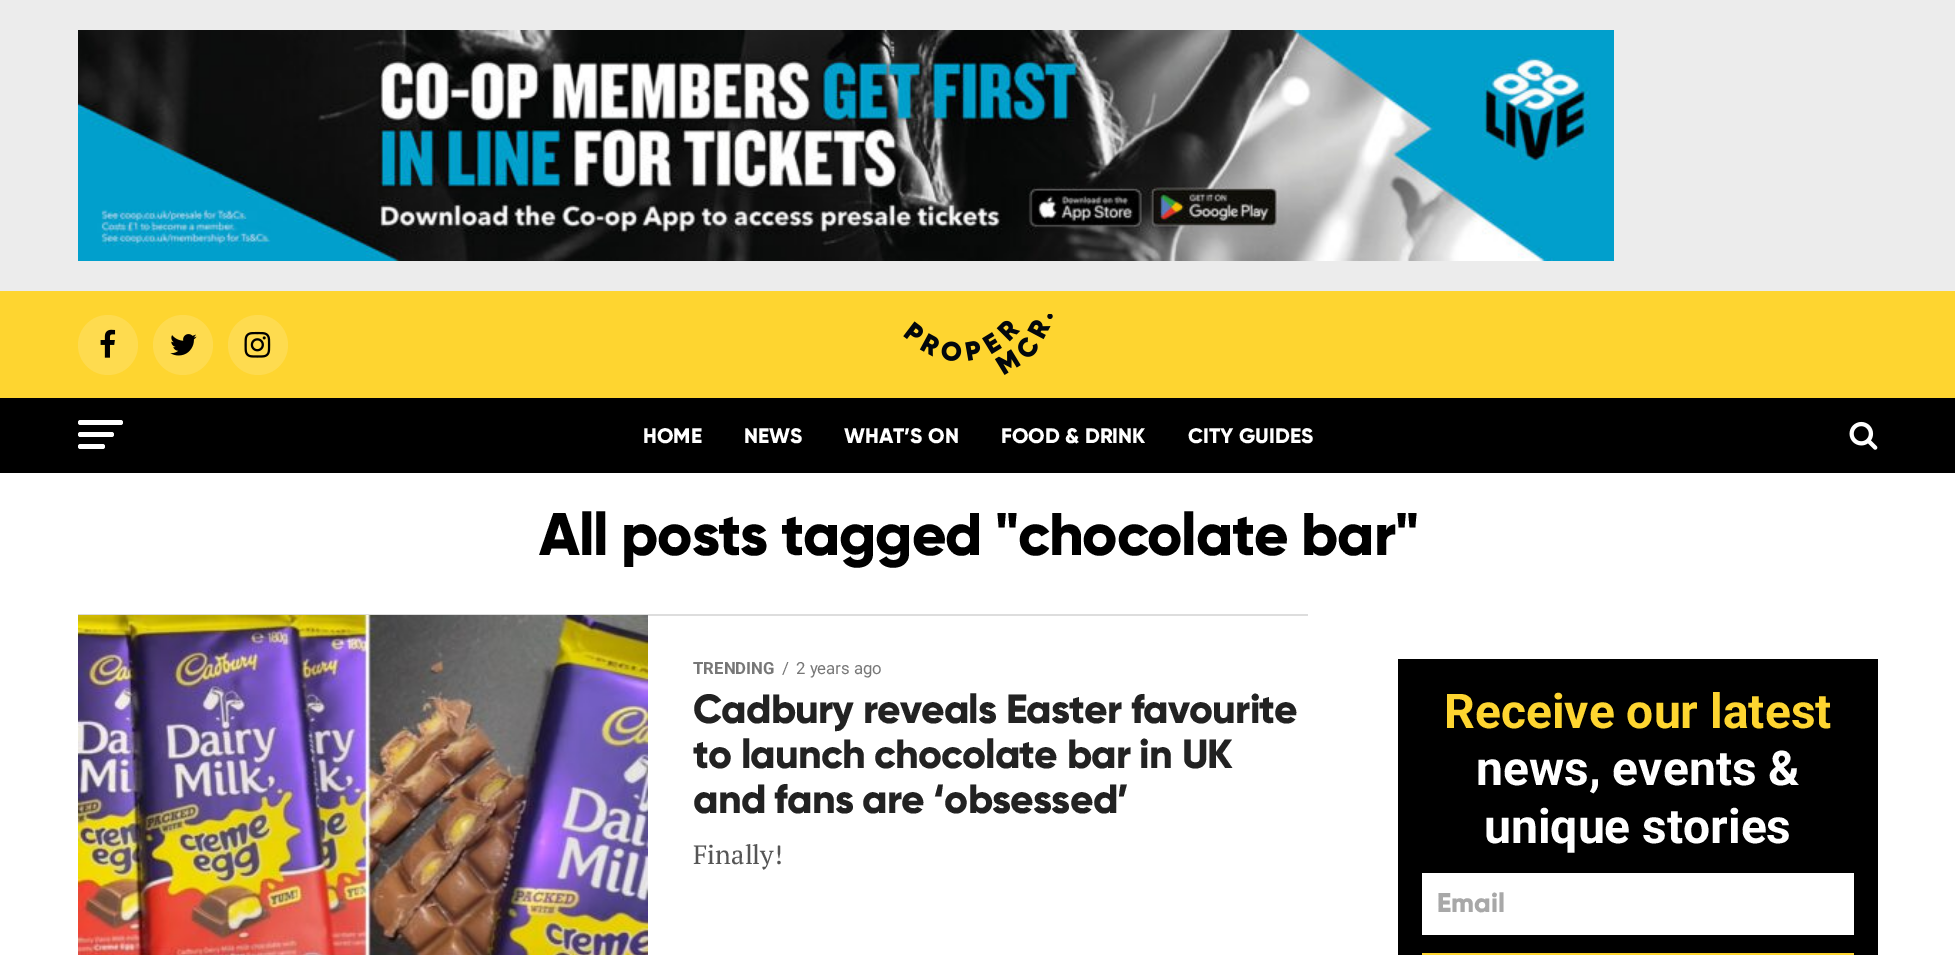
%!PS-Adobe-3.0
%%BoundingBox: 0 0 1955 955
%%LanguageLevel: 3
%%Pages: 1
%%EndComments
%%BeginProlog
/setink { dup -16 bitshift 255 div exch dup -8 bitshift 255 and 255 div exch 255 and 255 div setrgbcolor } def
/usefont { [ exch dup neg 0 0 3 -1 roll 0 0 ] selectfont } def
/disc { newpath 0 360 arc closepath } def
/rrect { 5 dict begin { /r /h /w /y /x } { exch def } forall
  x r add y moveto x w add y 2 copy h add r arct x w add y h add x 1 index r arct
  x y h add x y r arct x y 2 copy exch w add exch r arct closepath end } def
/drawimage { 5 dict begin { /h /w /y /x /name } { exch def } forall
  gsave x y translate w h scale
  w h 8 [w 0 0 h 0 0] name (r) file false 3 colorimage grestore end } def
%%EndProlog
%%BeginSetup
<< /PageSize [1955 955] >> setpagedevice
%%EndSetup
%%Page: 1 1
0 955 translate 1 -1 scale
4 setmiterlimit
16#FFFFFF setink
0 0 1955 955 rectfill
16#ECECEC setink
0 0 1955 291 rectfill
(img1.raw) 78 30 1536 231 drawimage
16#FED530 setink
0 291 1955 107 rectfill
16#FEDB4F setink
108 345 30 disc fill
(img2.raw) 100 329 16 29 drawimage
183 345 30 disc fill
(img3.raw) 170 334 27 22 drawimage
258 345 30 disc fill
(img4.raw) 244 331 27 27 drawimage
(img5.raw) 903 314 150 61 drawimage
16#000000 setink
0 398 1955 75 rectfill
16#FFFFFF setink
78 420 45 5 2.5 rrect fill
78 432 36 5 2.5 rrect fill
78 444 27 5 2.5 rrect fill
/Gilroy-ExtraBold 21 usefont
[
    [(HOME) 643 443]
    [(NEWS) 744 443]
    [(WHAT’S ON) 844 443]
    [(FOOD & DRINK) 1001 443]
    [(CITY GUIDES) 1188 443]
] { aload pop moveto show } forall
(img6.raw) 1849 421 29 29 drawimage
/Gilroy-ExtraBold 60 usefont
16#000000 setink
539 555 moveto -1.2 0 (All posts tagged "chocolate bar") ashow
16#DDDDDD setink
78 614 1230 2 rectfill
(img7.raw) 78 615 570 340 drawimage
/Roboto-Bold 16.75 usefont
16#777777 setink
693 674 moveto (TRENDING) show
/Roboto-Regular 16.75 usefont
782 674 moveto (/) show
796 674 moveto (2 years ago) show
/Gilroy-ExtraBold 40.75 usefont
16#222222 setink
693 723 moveto -0.8 0 (Cadbury reveals Easter favourite) ashow
693 768 moveto -0.8 0 (to launch chocolate bar in UK) ashow
693 813 moveto -0.8 0 (and fans are ‘obsessed’) ashow
/PTSerif-Regular 26.5 usefont
16#555555 setink
693 864 moveto (Finally!) show
16#000000 setink
1398 659 480 296 rectfill
/Roboto-Bold 48 usefont
16#FED530 setink
1444 728 moveto (Receive our latest) show
16#FFFFFF setink
1476 785 moveto (news, events &) show
1484 843 moveto (unique stories) show
1422 873 432 62 rectfill
/Gilroy-ExtraBold 27 usefont
16#A8A8A8 setink
1437 912 moveto (Email) show
16#FED530 setink
1422 953 432 2 rectfill
showpage
%%EOF
